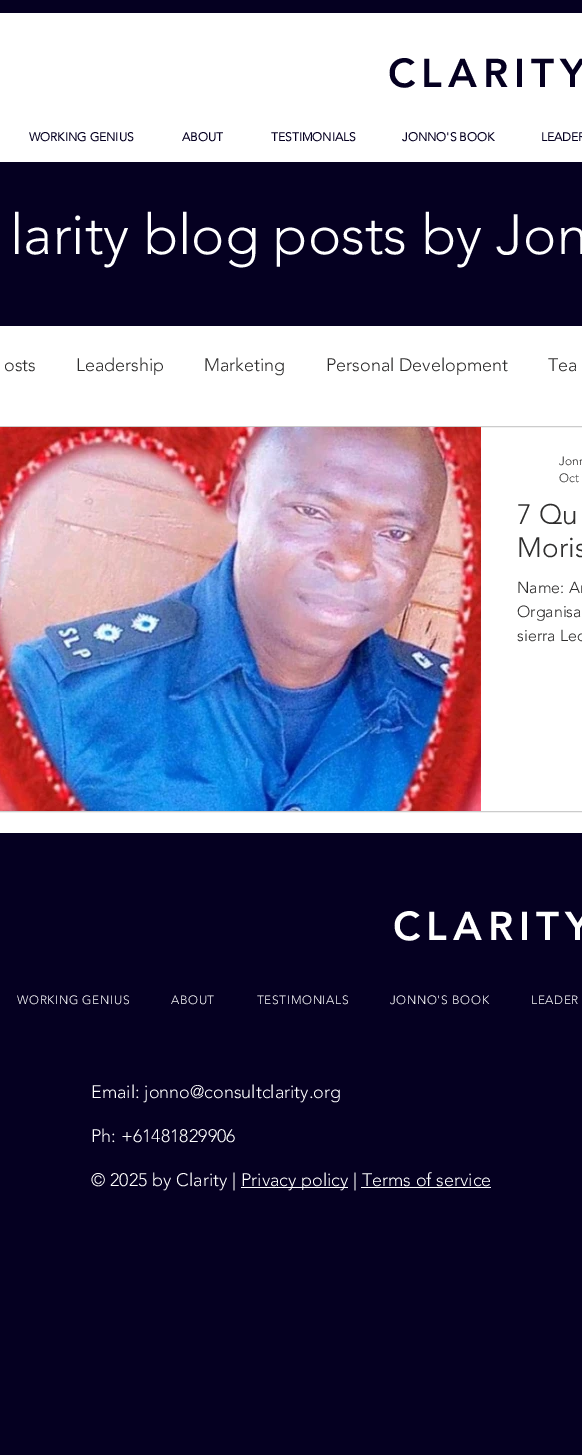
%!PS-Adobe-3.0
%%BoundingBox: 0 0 582 1455
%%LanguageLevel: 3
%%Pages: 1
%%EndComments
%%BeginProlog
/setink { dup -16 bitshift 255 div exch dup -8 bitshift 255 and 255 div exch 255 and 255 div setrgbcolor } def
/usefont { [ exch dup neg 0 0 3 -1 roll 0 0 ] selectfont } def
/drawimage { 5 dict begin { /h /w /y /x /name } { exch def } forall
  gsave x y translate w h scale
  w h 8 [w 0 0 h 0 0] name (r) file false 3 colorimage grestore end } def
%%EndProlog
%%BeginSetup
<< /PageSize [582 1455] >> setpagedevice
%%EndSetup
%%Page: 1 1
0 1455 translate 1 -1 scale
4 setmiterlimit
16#050021 setink
0 0 582 1455 rectfill
16#FFFFFF setink
0 13 582 149 rectfill
/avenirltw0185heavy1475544-Black 40 usefont
16#050021 setink
388 87 moveto 6 0 (CLARITY) ashow
/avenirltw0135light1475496-Bold 12 usefont
[
    [(WORKING GENIUS) 29 141]
    [(ABOUT) 182 141]
    [(TESTIMONIALS) 271 141]
    [(JONNO'S BOOK) 402 141]
    [(LEADER) 541 141]
] { aload pop moveto show } forall
/avenirltw0135light1475496-Light 56 usefont
16#FFFFFF setink
10 254 moveto (larity blog posts by Jon) show
0 326 582 507 rectfill
/avenirltw0135light1475496-Light 18 usefont
16#2F2E2E setink
[
    [(osts) 4 371]
    [(Leadership) 76 371]
    [(Marketing) 204 371]
    [(Personal Development) 326 371]
    [(Tea) 548 371]
] { aload pop moveto show } forall
16#CCCCCC setink
-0.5 426.5 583 385 rectstroke
(img1.raw) 0 427 481 384 drawimage
/avenirltw0135light1475496-Light 12 usefont
16#2F2E2E setink
559 465 moveto (Jonn) show
559 482 moveto (Oct) show
/avenirltw0135light1475496-Light 28 usefont
517 524 moveto (7 Qu) show
517 557 moveto (Moris) show
/avenirltw0135light1475496-Light 16 usefont
[
    [(Name: Ar) 517 593]
    [(Organisa) 517 617]
    [(sierra Leo) 517 641]
] { aload pop moveto show } forall
/avenirltw0185heavy1475544-Black 40 usefont
16#FFFFFF setink
393 940 moveto 6 0 (CLARITY) ashow
/avenirltw0135light1475496-Light 12 usefont
17 1004 moveto 0.6 0 (WORKING GENIUS) ashow
171 1004 moveto 0.6 0 (ABOUT) ashow
257 1004 moveto 0.6 0 (TESTIMONIALS) ashow
390 1004 moveto 0.6 0 (JONNO'S BOOK) ashow
531 1004 moveto 0.6 0 (LEADER) ashow
/avenirltw0135light1475496-Light 18 usefont
[
    [(Email: jonno@consultclarity.org) 91 1098]
    [(Ph: +61481829906) 91 1142]
    [(© 2025 by Clarity |) 91 1186]
] { aload pop moveto show } forall
241 1187 107 1 rectfill
241 1186 moveto (Privacy policy | Terms of service) show
361 1187 130 1 rectfill
showpage
%%EOF
